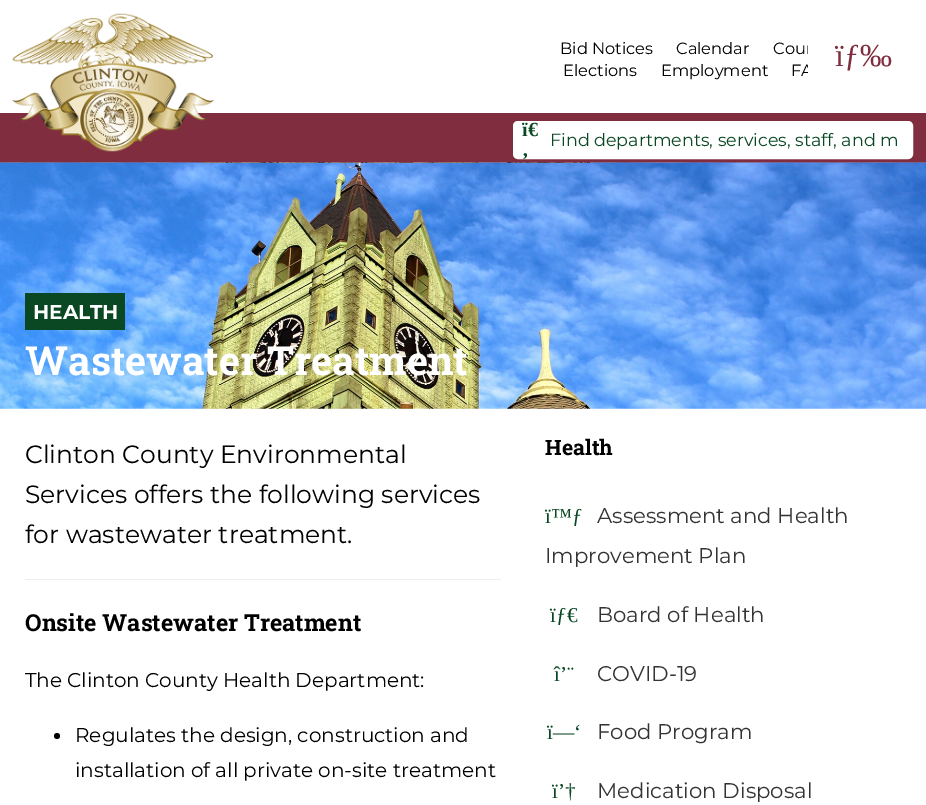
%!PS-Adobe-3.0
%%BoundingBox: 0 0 926 805
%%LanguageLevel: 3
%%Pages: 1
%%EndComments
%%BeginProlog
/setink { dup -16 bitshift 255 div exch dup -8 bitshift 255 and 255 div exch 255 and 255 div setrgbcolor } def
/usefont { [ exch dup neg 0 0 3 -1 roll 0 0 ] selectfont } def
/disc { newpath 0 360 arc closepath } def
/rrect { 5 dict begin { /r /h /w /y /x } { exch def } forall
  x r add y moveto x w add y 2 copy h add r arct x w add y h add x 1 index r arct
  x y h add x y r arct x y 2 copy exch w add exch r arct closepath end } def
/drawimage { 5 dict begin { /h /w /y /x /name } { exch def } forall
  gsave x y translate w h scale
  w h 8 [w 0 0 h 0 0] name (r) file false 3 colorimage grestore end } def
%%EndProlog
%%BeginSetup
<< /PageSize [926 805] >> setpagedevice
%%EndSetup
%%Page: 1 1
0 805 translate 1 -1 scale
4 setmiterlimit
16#FFFFFF setink
0 0 926 805 rectfill
16#802D40 setink
0 113 926 50 rectfill
(img1.raw) 12 13 202 139 drawimage
/Montserrat-Regular 16.25 usefont
16#000000 setink
[
    [(Bid Notices) 560 54]
    [(Calendar) 676 54]
    [(Cour) 773 54]
    [(Elections) 563 76]
    [(Employment) 661 76]
    [(FA) 791 76]
] { aload pop moveto show } forall
16#FFFFFF setink
808 45 5 31 rectfill
/LiberationSerif-Regular 32 usefont
16#802D40 setink
835 66 moveto (ïƒ‰) show
16#FFFFFF setink
514.5 122.5 397 35 3.5 rrect gsave fill grestore
3 setlinewidth
stroke
/LiberationSerif-Bold 20 usefont
16#094823 setink
522 136 moveto (ï€) show
522 156 moveto (‚) show
/Montserrat-Regular 17.5 usefont
550 146 moveto (Find departments, services, staff, and m) show
(img2.raw) 0 162 926 247 drawimage
25 293 100 37 rectfill
/Montserrat-Bold 20 usefont
16#FFFFFF setink
33 319 moveto (HEALTH) show
/RobotoSlab-Bold 40 usefont
25 375 moveto (Wastewater Treatment) show
16#EEEEEE setink
25 579 476 1 rectfill
/Montserrat-Regular 25 usefont
16#000000 setink
[
    [(Clinton County Environmental) 25 463]
    [(Services offers the following services) 25 503]
    [(for wastewater treatment.) 25 543]
] { aload pop moveto show } forall
/RobotoSlab-Bold 23.4 usefont
25 631 moveto (Onsite Wastewater Treatment) show
/Montserrat-Regular 20 usefont
25 687 moveto (The Clinton County Health Department:) show
57 736 3 disc fill
75 742 moveto (Regulates the design, construction and) show
75 777 moveto (installation of all private on-site treatment) show
/RobotoSlab-Bold 21.25 usefont
545 455 moveto (Health) show
/LiberationSerif-Regular 21.25 usefont
16#094823 setink
545 523 moveto (ï™ƒ) show
/Montserrat-Regular 21.25 usefont
16#333333 setink
597 523 moveto (Assessment and Health) show
545 563 moveto (Improvement Plan) show
/LiberationSerif-Regular 21.25 usefont
16#094823 setink
550 622 moveto (ïƒ€) show
/Montserrat-Regular 21.25 usefont
16#333333 setink
597 622 moveto (Board of Health) show
/LiberationSerif-Regular 21.25 usefont
16#094823 setink
554 681 moveto (î’¨) show
/Montserrat-Regular 21.25 usefont
16#333333 setink
597 681 moveto (COVID-19) show
/LiberationSerif-Regular 21.25 usefont
16#094823 setink
547 739 moveto (ï—‘) show
/Montserrat-Regular 21.25 usefont
16#333333 setink
597 739 moveto (Food Program) show
/LiberationSerif-Regular 21.25 usefont
16#094823 setink
552 798 moveto (ï’†) show
/Montserrat-Regular 21.25 usefont
16#333333 setink
597 798 moveto (Medication Disposal) show
showpage
%%EOF
